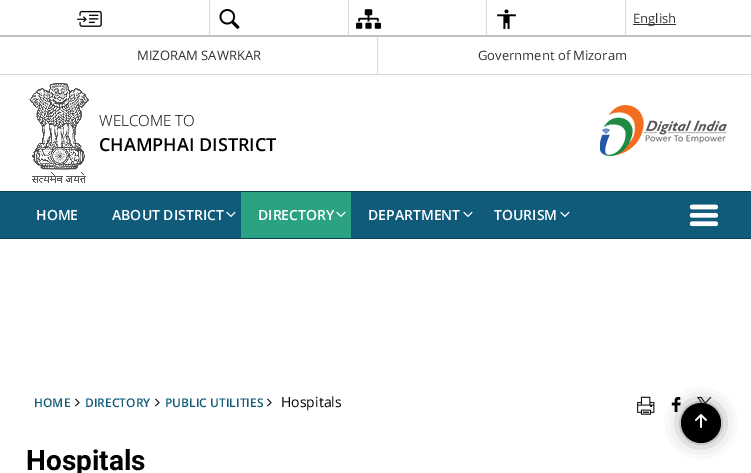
%!PS-Adobe-3.0
%%BoundingBox: 0 0 751 473
%%LanguageLevel: 3
%%Pages: 1
%%EndComments
%%BeginProlog
/setink { dup -16 bitshift 255 div exch dup -8 bitshift 255 and 255 div exch 255 and 255 div setrgbcolor } def
/usefont { [ exch dup neg 0 0 3 -1 roll 0 0 ] selectfont } def
/setalpha { dup .setfillconstantalpha .setstrokeconstantalpha } def
/disc { newpath 0 360 arc closepath } def
/rrect { 5 dict begin { /r /h /w /y /x } { exch def } forall
  x r add y moveto x w add y 2 copy h add r arct x w add y h add x 1 index r arct
  x y h add x y r arct x y 2 copy exch w add exch r arct closepath end } def
/softshadow { 12 dict begin { /a /b /q /h /w /y /x } { exch def } forall gsave /was 0 def
  9 -2 -9 { dup b mul 4 div /e exch def 1 sub .425 mul 2.718 exch exp 1 add a .99 .min exch div /now exch def
    1 1 now sub 1 was sub div sub setalpha /was now def
    w h .min e 2 mul add 0 gt { x e sub y e sub w e 2 mul add h e 2 mul add
      q e add b .6 mul add w h .min 2 div e add .min 0 .max rrect fill } if } for grestore end } def
/drawimage { 5 dict begin { /h /w /y /x /name } { exch def } forall
  gsave x y translate w h scale
  w h 8 [w 0 0 h 0 0] name (r) file false 3 colorimage grestore end } def
%%EndProlog
%%BeginSetup
<< /PageSize [751 473] /PageUsesTransparency true >> setpagedevice
%%EndSetup
%%Page: 1 1
0 .pushpdf14devicefilter
0 473 translate 1 -1 scale
4 setmiterlimit
16#FFFFFF setink
0 0 751 473 rectfill
16#D8D8D8 setink
0 74 751 1 rectfill
(img1.raw) 77 10 25 17 drawimage
209 0 1 37 rectfill
(img2.raw) 219 9 21 20 drawimage
348 0 1 37 rectfill
(img3.raw) 356 9 25 20 drawimage
486 0 1 37 rectfill
(img4.raw) 497 9 19 20 drawimage
625 0 1 37 rectfill
16#333333 setink
633 24 43 1 rectfill
/OpenSans-Regular 13 usefont
633 23 moveto (English) show
137 60 moveto (MIZORAM SAWRKAR) show
16#D8D8D8 setink
377 37 1 37 rectfill
16#333333 setink
478 60 moveto (Government of Mizoram) show
16#C2C0C1 setink
0 35 751 2 rectfill
(img5.raw) 29 83 60 100 drawimage
/OpenSans-Light 15.25 usefont
16#000000 setink
99 126 moveto (WELCOME TO) show
/OpenSans-SemiBold 18 usefont
99 151 moveto (CHAMPHAI DISTRICT) show
(img6.raw) 600 105 127 51 drawimage
[
    [0 192 751 46 16#105B7A]
    [0 191 751 1 16#0B4055]
    [0 238 751 1 16#0B4055]
] { aload pop setink rectfill } forall
/OpenSans-SemiBold 14 usefont
16#FFFFFF setink
36 220 moveto (HOME) show
112 220 moveto (ABOUT DISTRICT) show
(img7.raw) 226 211 10 7 drawimage
16#2BA282 setink
241 192 110 46 rectfill
16#FFFFFF setink
258 220 moveto (DIRECTORY) show
(img8.raw) 336 211 10 7 drawimage
368 220 moveto (DEPARTMENT) show
(img7.raw) 463 211 10 7 drawimage
494 220 moveto (TOURISM) show
(img7.raw) 560 211 10 7 drawimage
(img9.raw) 689 204 30 23 drawimage
/OpenSans-SemiBold 12 usefont
16#105B7A setink
34 407 moveto (HOME) show
(img10.raw) 75 398 5 9 drawimage
85 407 moveto (DIRECTORY) show
(img10.raw) 155 398 5 9 drawimage
165 407 moveto (PUBLIC UTILITIES) show
(img10.raw) 267 398 5 9 drawimage
/OpenSans-Regular 14 usefont
16#000000 setink
281 407 moveto (Hospitals) show
(img11.raw) 637 396 18 19 drawimage
(img12.raw) 671 397 10 15 drawimage
(img13.raw) 697 397 15 7 drawimage
/Roboto-Bold 28 usefont
26 470 moveto (Hospitals) show
16#3C3C3C setink
686 408 30 30 15 9.5 1 softshadow
16#000000 setink
701 423 20 disc fill
(img14.raw) 695 414 12 14 drawimage
.poppdf14devicefilter showpage
%%EOF
